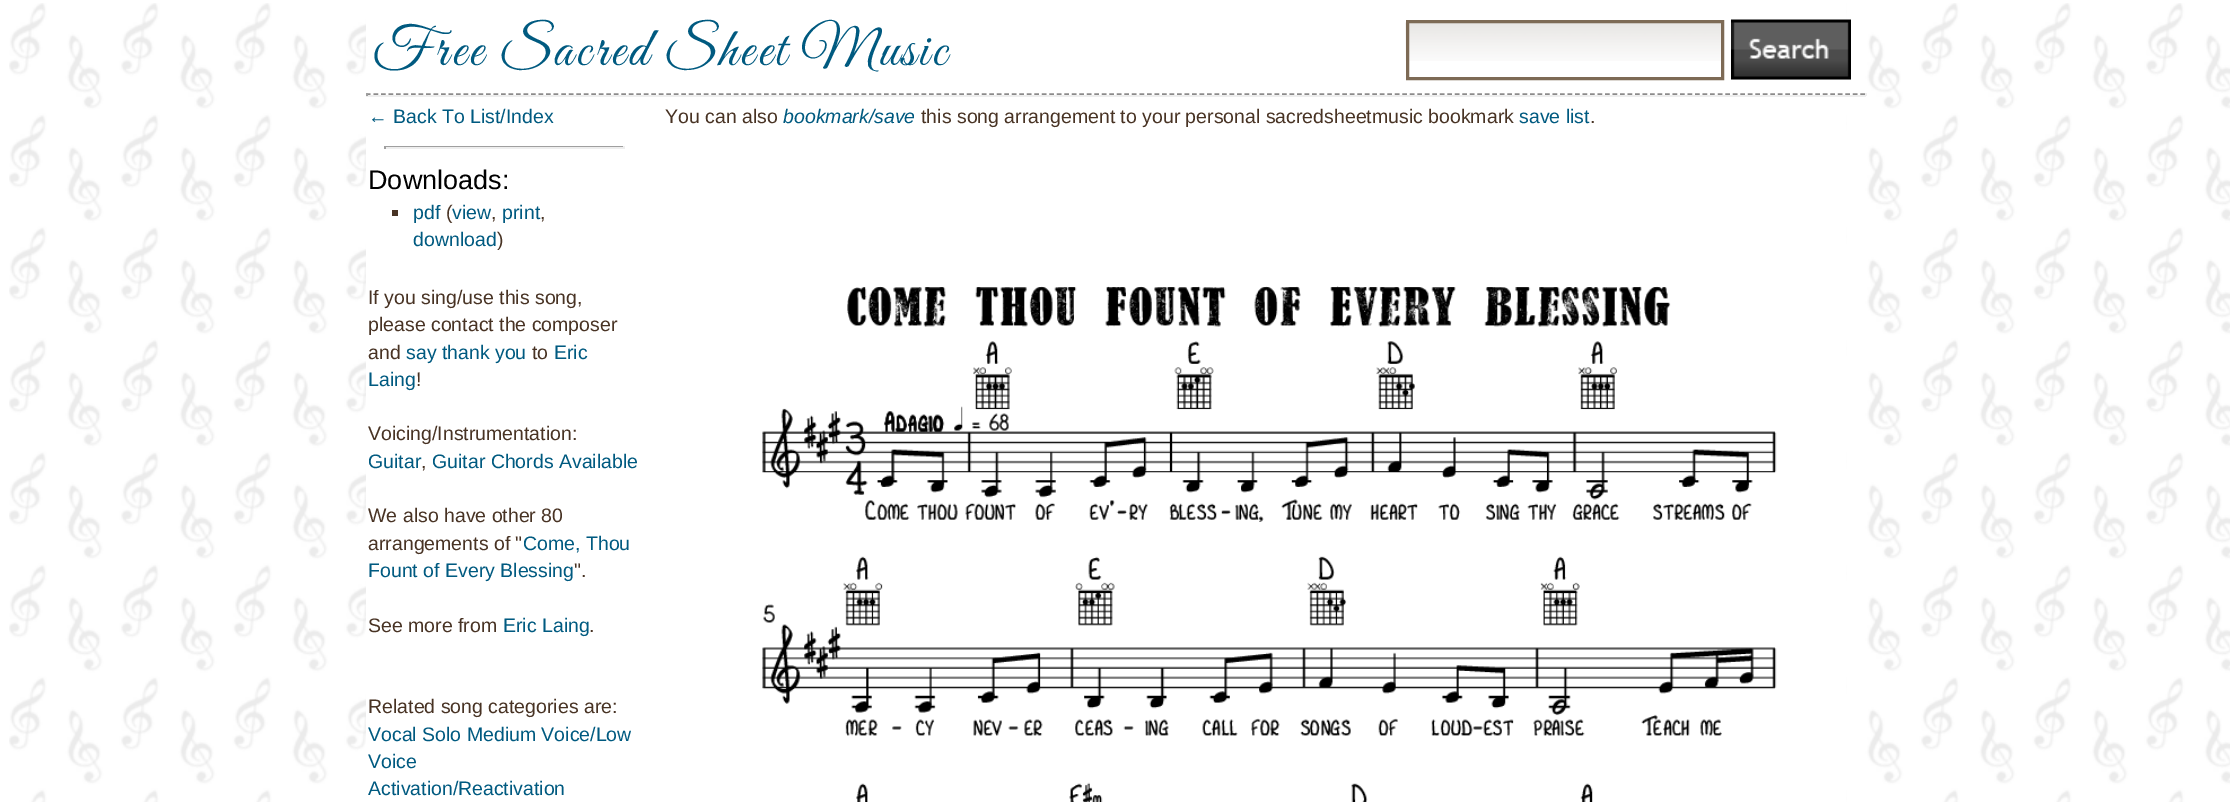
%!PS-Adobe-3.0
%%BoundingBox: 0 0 2230 802
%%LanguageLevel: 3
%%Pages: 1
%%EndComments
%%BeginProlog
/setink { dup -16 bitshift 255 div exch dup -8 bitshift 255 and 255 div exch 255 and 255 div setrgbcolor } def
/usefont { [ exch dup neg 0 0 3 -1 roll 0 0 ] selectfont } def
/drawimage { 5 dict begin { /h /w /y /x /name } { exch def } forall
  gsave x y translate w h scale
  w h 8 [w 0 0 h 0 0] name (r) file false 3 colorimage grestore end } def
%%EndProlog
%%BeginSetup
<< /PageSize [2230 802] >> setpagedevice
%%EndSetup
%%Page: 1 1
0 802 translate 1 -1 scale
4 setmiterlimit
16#FFFFFF setink
0 0 2230 802 rectfill
(img1.raw) 9 3 2221 799 drawimage
366 3 1480 799 rectfill
/GreatVibes-Regular 55.5 usefont
16#005A80 setink
373 65 moveto 3 0 (Free Sacred Sheet Music) ashow
(img2.raw) 1405 22 316 39 drawimage
16#7D6A55 setink
3 setlinewidth
1407.5 21.5 315 57 rectstroke
16#EFEFEF setink
1731 79 120 1 rectfill
(img3.raw) 1731 19 120 61 drawimage
16#8C8B8B setink
1.5 setlinewidth
[4.5 3.01] 0 setdash
366 94 moveto 1866 94 lineto stroke
[
    [1865 93 2 3 16#EEEEEE]
    [366 95 1500 2 16#EEEEEE]
    [366 93 2 3 16#9F9F9F]
] { aload pop setink rectfill } forall
/LiberationSans-Regular 19.5 usefont
16#005A80 setink
368 123 moveto (← Back To List/Index) show
[
    [384 146 240 1 16#9F9F9F]
    [623 146 2 3 16#EEEEEE]
    [384 147 240 2 16#EEEEEE]
    [384 146 2 3 16#9F9F9F]
] { aload pop setink rectfill } forall
/LiberationSans-Regular 27 usefont
16#000000 setink
368 189 moveto (Downloads:) show
16#483324 setink
392 210 6 6 rectfill
/LiberationSans-Regular 19.5 usefont
16#005A80 setink
413 219 moveto (pdf) show
16#483324 setink
446 219 moveto (\() show
16#005A80 setink
452 219 moveto (view) show
502 219 moveto (print) show
16#483324 setink
491 219 moveto (,) show
540 219 moveto (,) show
16#005A80 setink
413 246 moveto (download) show
16#483324 setink
[
    [(\)) 497 246]
    [(If you sing/use this song,) 368 304]
    [(please contact the composer) 368 331]
    [(and) 368 359]
] { aload pop moveto show } forall
16#005A80 setink
406 359 moveto (say thank you) show
16#483324 setink
532 359 moveto (to) show
16#005A80 setink
554 359 moveto (Eric) show
368 386 moveto (Laing) show
16#483324 setink
416 386 moveto (!) show
368 440 moveto (Voicing/Instrumentation:) show
16#005A80 setink
368 468 moveto (Guitar) show
16#483324 setink
421 468 moveto (,) show
16#005A80 setink
432 468 moveto (Guitar Chords Available) show
16#483324 setink
368 522 moveto (We also have other 80) show
368 550 moveto (arrangements of ") show
16#005A80 setink
523 550 moveto (Come, Thou) show
368 577 moveto (Fount of Every Blessing) show
16#483324 setink
574 577 moveto (".) show
368 632 moveto (See more from) show
16#005A80 setink
503 632 moveto (Eric Laing) show
16#483324 setink
589 632 moveto (.) show
368 713 moveto (Related song categories are:) show
16#005A80 setink
[
    [(Vocal Solo Medium Voice/Low) 368 741]
    [(Voice) 368 768]
    [(Activation/Reactivation) 368 795]
] { aload pop moveto show } forall
16#483324 setink
665 123 moveto (You can also) show
/LiberationSans-Italic 19.5 usefont
16#005A80 setink
783 123 moveto (bookmark/save) show
/LiberationSans-Regular 19.5 usefont
16#483324 setink
921 123 moveto (this song arrangement to your personal sacredsheetmusic bookmark) show
16#005A80 setink
1519 123 moveto (save list) show
16#483324 setink
1590 123 moveto (.) show
(img4.raw) 762 286 1015 516 drawimage
showpage
%%EOF
